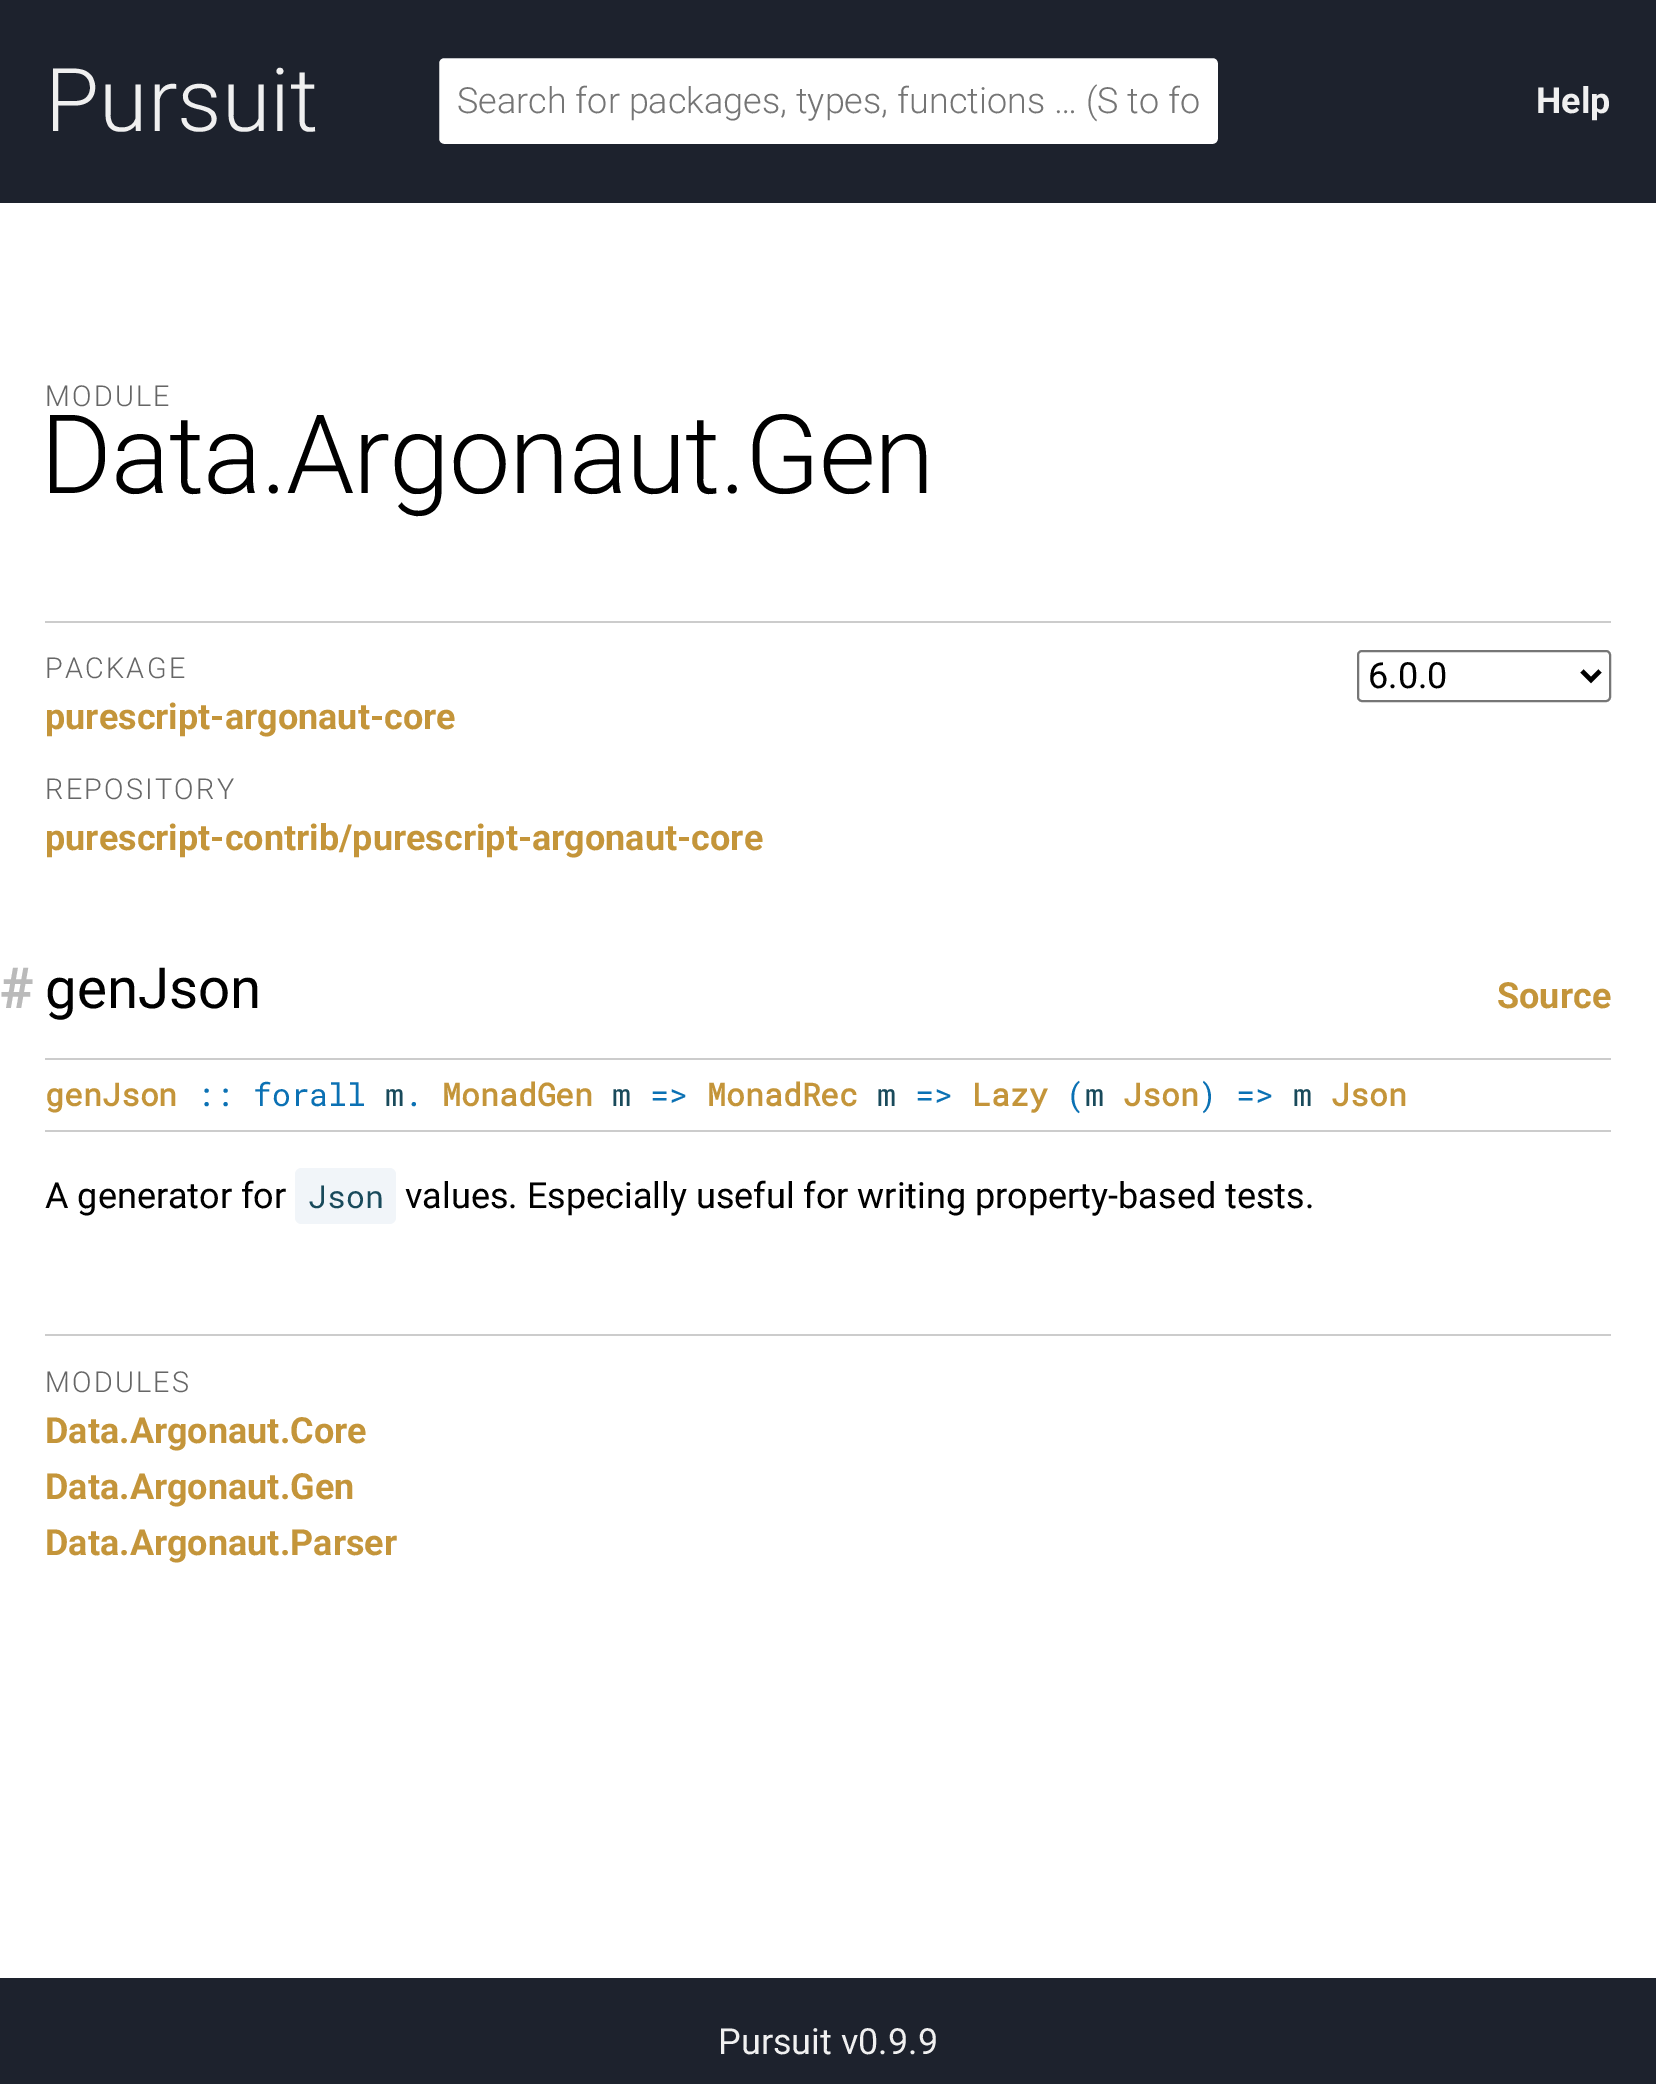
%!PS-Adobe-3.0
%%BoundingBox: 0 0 1656 2084
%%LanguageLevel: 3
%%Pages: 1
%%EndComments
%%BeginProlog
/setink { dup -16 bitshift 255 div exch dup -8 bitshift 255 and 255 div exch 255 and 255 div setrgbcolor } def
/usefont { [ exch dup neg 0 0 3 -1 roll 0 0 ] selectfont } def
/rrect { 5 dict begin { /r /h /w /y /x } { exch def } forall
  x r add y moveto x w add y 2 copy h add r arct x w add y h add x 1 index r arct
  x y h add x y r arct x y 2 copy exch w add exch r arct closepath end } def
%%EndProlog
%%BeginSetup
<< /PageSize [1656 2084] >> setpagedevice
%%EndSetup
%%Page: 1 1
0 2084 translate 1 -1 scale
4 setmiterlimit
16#FFFFFF setink
0 0 1656 2084 rectfill
16#1D222D setink
0 0 1656 203 rectfill
/Roboto-Light 88 usefont
16#F0F0F0 setink
45 131 moveto (Pursuit) show
16#FFFFFF setink
438 57 781 88 6 rrect gsave fill grestore
16#1D222D setink
2 setlinewidth
stroke
/Roboto-Light 36 usefont
16#757575 setink
457 113 moveto (Search for packages, types, functions … \(S to fo) show
/Roboto-Bold 36 usefont
16#F0F0F0 setink
1536 113 moveto (Help) show
/Roboto-Light 28.75 usefont
16#666666 setink
45 406 moveto 2.25 0 (MODULE) ashow
/Roboto-Light 109.75 usefont
16#000000 setink
40 493 moveto -1.1 0 (Data.Argonaut.Gen) ashow
16#CCCCCC setink
45 621 1566 2 rectfill
/Roboto-Light 28.75 usefont
16#666666 setink
45 678 moveto 2.25 0 (PACKAGE) ashow
/Roboto-Bold 36 usefont
16#C4953A setink
45 729 moveto (purescript-argonaut-core) show
/Roboto-Light 28.75 usefont
16#666666 setink
45 799 moveto 2.25 0 (REPOSITORY) ashow
/Roboto-Bold 36 usefont
16#C4953A setink
45 850 moveto (purescript-contrib/purescript-argonaut-core) show
16#767676 setink
1358 651 252 50 4 rrect stroke
16#000000 setink
4.5 setlinewidth
1582 671 moveto 1591 680 lineto 1600 671 lineto stroke
/Roboto-Regular 36 usefont
1368 688 moveto (6.0.0) show
/Roboto-Bold 56.5 usefont
16#BABABA setink
0 1008 moveto (#) show
/Roboto-Regular 56.5 usefont
16#000000 setink
45 1008 moveto (genJson) show
/Roboto-Bold 36 usefont
16#C4953A setink
1497 1008 moveto (Source) show
16#CCCCCC setink
45 1058 1566 2 rectfill
45 1130 1566 2 rectfill
/RobotoMono-Bold 31.5 usefont
16#C4953A setink
45 1106 moveto (genJson) show
/RobotoMono-Regular 31.5 usefont
16#0B71B4 setink
196 1106 moveto (:: forall) show
16#194A5B setink
385 1106 moveto (m) show
16#0B71B4 setink
404 1106 moveto (.) show
/RobotoMono-Bold 31.5 usefont
16#C4953A setink
442 1106 moveto (MonadGen) show
/RobotoMono-Regular 31.5 usefont
16#194A5B setink
612 1106 moveto (m) show
16#0B71B4 setink
650 1106 moveto (=>) show
/RobotoMono-Bold 31.5 usefont
16#C4953A setink
707 1106 moveto (MonadRec) show
/RobotoMono-Regular 31.5 usefont
16#194A5B setink
877 1106 moveto (m) show
16#0B71B4 setink
915 1106 moveto (=>) show
/RobotoMono-Bold 31.5 usefont
16#C4953A setink
972 1106 moveto (Lazy) show
/RobotoMono-Regular 31.5 usefont
16#0B71B4 setink
1066 1106 moveto (\() show
16#194A5B setink
1085 1106 moveto (m) show
/RobotoMono-Bold 31.5 usefont
16#C4953A setink
1123 1106 moveto (Json) show
/RobotoMono-Regular 31.5 usefont
16#0B71B4 setink
1198 1106 moveto (\) =>) show
16#194A5B setink
1293 1106 moveto (m) show
/RobotoMono-Bold 31.5 usefont
16#C4953A setink
1331 1106 moveto (Json) show
/Roboto-Regular 36 usefont
16#000000 setink
45 1208 moveto (A generator for) show
16#F1F5F9 setink
308 1168 75 56 rectfill
/RobotoMono-Regular 31.5 usefont
16#194A5B setink
308 1208 moveto (Json) show
16#F1F5F9 setink
301.5 1168 moveto 308 1168 lineto 308 1224 lineto 301.5 1224 lineto 298 1224 295 1221 295 1217.5 curveto 295 1174.5 lineto 295 1171 298 1168 301.5 1168 curveto closepath fill
383 1168 moveto 389.5 1168 lineto 393 1168 396 1171 396 1174.5 curveto 396 1217.5 lineto 396 1221 393 1224 389.5 1224 curveto 383 1224 lineto closepath fill
/Roboto-Regular 36 usefont
16#000000 setink
405 1208 moveto (values. Especially useful for writing property-based tests.) show
16#CCCCCC setink
45 1334 1566 2 rectfill
/Roboto-Light 28.75 usefont
16#666666 setink
45 1392 moveto 2.25 0 (MODULES) ashow
/Roboto-Bold 36 usefont
16#C4953A setink
[
    [(Data.Argonaut.Core) 45 1443]
    [(Data.Argonaut.Gen) 45 1499]
    [(Data.Argonaut.Parser) 45 1555]
] { aload pop moveto show } forall
16#1D222D setink
0 1978 1656 106 rectfill
/Roboto-Regular 36 usefont
16#F0F0F0 setink
718 2054 moveto (Pursuit v0.9.9) show
showpage
%%EOF
